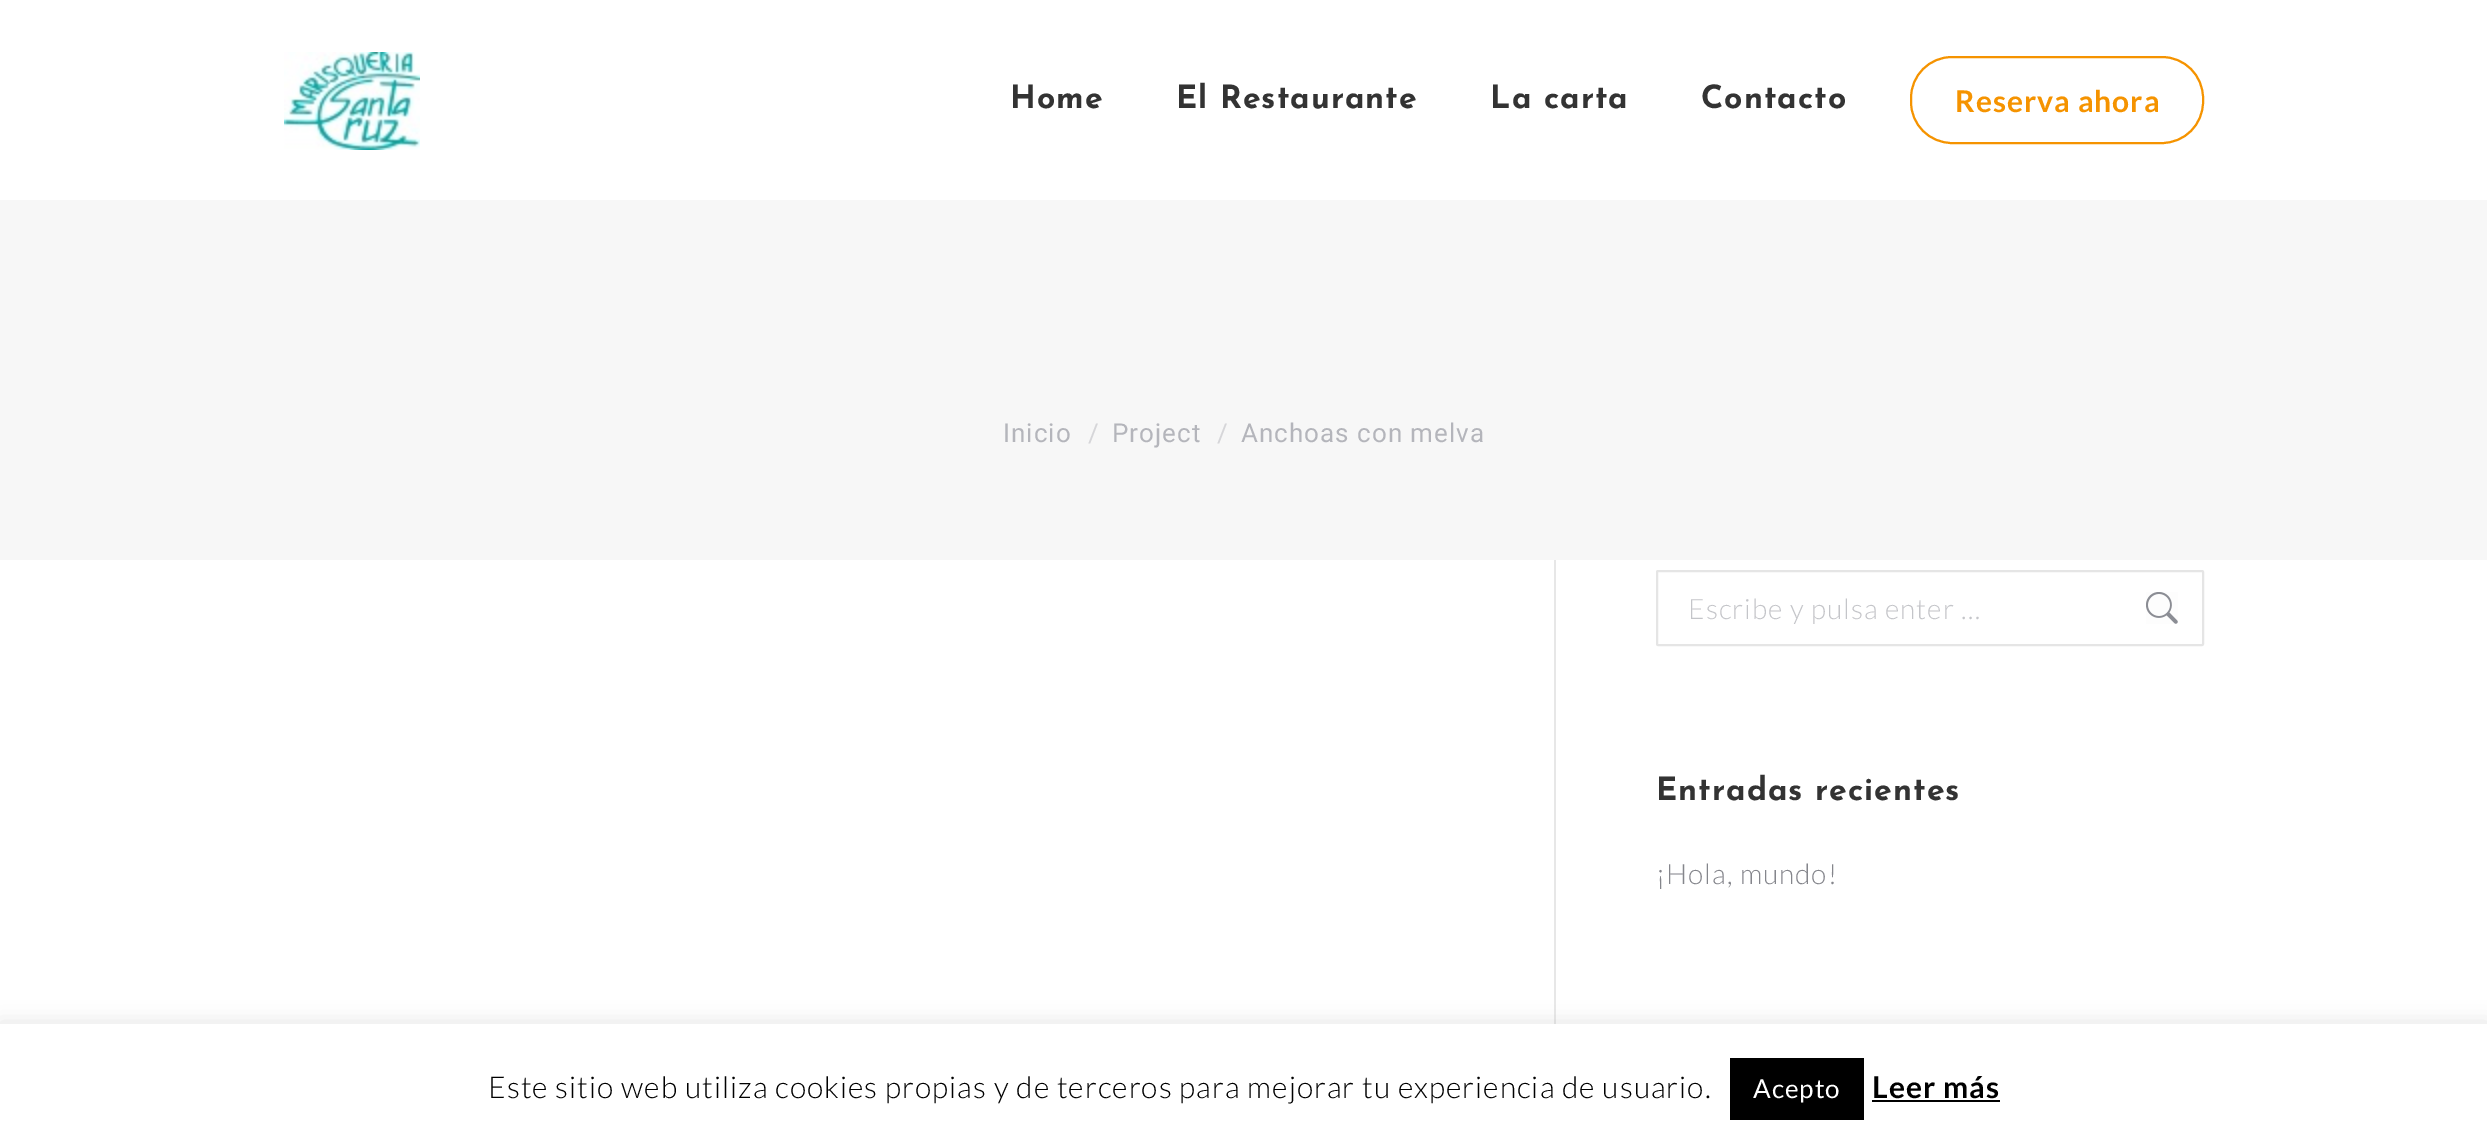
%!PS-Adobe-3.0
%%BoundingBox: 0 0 2487 1144
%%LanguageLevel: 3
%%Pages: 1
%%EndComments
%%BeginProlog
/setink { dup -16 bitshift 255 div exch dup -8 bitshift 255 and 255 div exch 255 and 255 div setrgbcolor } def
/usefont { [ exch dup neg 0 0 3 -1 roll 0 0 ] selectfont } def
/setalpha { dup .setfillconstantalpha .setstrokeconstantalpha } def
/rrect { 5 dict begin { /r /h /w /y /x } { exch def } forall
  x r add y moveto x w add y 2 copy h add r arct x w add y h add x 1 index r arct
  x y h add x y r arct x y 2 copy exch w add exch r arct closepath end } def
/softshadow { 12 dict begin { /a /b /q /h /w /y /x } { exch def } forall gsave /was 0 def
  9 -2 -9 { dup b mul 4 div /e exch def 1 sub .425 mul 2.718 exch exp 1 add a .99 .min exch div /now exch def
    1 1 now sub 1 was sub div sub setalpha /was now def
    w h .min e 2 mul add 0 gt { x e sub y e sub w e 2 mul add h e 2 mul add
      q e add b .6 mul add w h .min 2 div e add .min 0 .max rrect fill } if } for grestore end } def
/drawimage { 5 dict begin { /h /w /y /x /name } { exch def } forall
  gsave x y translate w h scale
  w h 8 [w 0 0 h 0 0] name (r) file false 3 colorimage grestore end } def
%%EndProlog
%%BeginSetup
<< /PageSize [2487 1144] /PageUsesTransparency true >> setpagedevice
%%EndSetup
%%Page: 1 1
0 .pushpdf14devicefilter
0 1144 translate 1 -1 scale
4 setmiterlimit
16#FFFFFF setink
0 0 2487 1144 rectfill
(img1.raw) 284 52 136 98 drawimage
/JosefinSans-Bold 32 usefont
16#333333 setink
1010 108 moveto 1 0 (Home) ashow
1176 108 moveto 1 0 (El Restaurante) ashow
1490 108 moveto 1 0 (La carta) ashow
1701 108 moveto 1 0 (Contacto) ashow
16#F59300 setink
2 setlinewidth
1911 57 292 86 41 rrect stroke
/Lato-Bold 30 usefont
1955 112 moveto 1 0 (Reserva ahora) ashow
16#F7F7F7 setink
0 200 2487 360 rectfill
/Roboto-Regular 26 usefont
16#B4B5BB setink
1003 442 moveto 1 0 (Inicio) ashow
16#D6D6D9 setink
1088 442 moveto 1 0 (/) ashow
16#B4B5BB setink
1112 442 moveto 1 0 (Project) ashow
16#D6D6D9 setink
1217 442 moveto 1 0 (/) ashow
16#B4B5BB setink
1241 442 moveto 1 0 (Anchoas con melva) ashow
16#E7E7E7 setink
1554 560 2 464 rectfill
16#E5E5E5 setink
1657 571 546 74 1 rrect stroke
/Lato-Light 28 usefont
16#C4C5C9 setink
1688 619 moveto 1 0 (Escribe y pulsa enter …) ashow
(img2.raw) 2146 592 32 32 drawimage
/JosefinSans-Bold 32 usefont
16#333333 setink
1656 800 moveto 1 0 (Entradas recientes) ashow
/Lato-Light 28 usefont
16#85868C setink
1656 884 moveto 1 0 (¡Hola, mundo!) ashow
16#ACABAB setink
0 1022 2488 120 0 10 0.3 softshadow
16#FFFFFF setink
0 1024 2487 120 rectfill
/Lato-Light 30 usefont
16#000000 setink
488 1098 moveto 1 0 (Este sitio web utiliza cookies propias y de terceros para mejorar tu experiencia de usuario.) ashow
1730 1058 134 62 rectfill
/Lato-Regular 26 usefont
16#FFFFFF setink
1753 1098 moveto 1 0 (Acepto) ashow
/Lato-Bold 30 usefont
16#000000 setink
1872 1098 moveto 1 0 (Leer más) ashow
1872 1100 128 2 rectfill
.poppdf14devicefilter showpage
%%EOF
